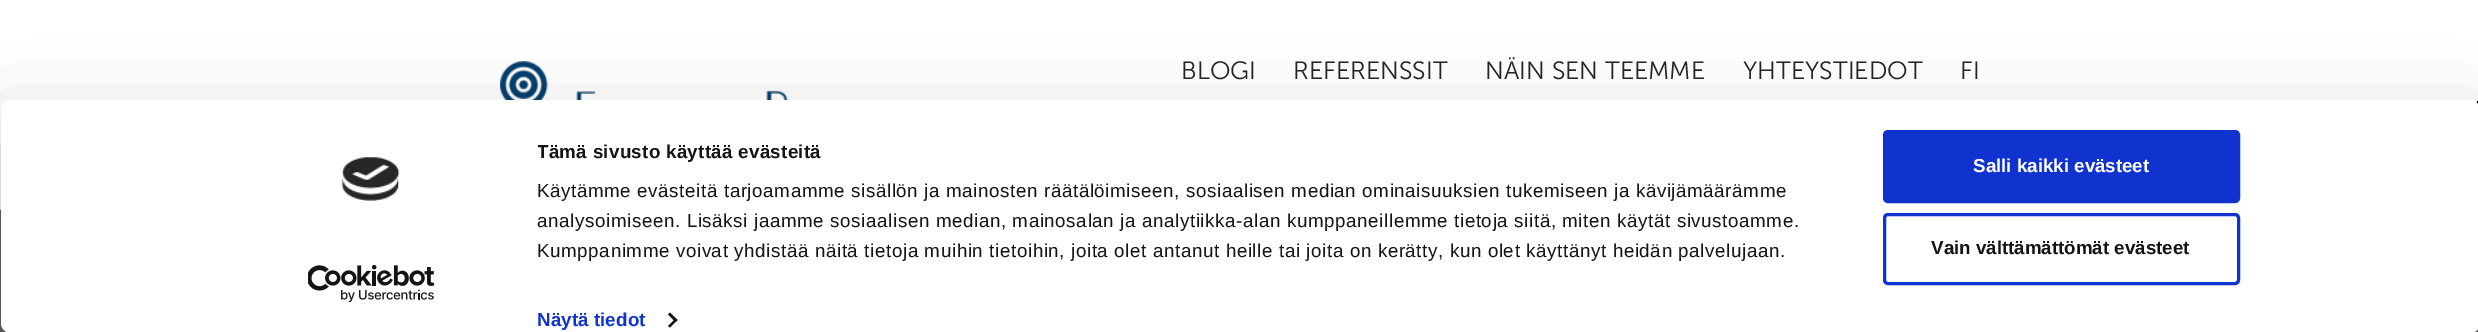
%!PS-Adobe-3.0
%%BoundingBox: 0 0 2478 332
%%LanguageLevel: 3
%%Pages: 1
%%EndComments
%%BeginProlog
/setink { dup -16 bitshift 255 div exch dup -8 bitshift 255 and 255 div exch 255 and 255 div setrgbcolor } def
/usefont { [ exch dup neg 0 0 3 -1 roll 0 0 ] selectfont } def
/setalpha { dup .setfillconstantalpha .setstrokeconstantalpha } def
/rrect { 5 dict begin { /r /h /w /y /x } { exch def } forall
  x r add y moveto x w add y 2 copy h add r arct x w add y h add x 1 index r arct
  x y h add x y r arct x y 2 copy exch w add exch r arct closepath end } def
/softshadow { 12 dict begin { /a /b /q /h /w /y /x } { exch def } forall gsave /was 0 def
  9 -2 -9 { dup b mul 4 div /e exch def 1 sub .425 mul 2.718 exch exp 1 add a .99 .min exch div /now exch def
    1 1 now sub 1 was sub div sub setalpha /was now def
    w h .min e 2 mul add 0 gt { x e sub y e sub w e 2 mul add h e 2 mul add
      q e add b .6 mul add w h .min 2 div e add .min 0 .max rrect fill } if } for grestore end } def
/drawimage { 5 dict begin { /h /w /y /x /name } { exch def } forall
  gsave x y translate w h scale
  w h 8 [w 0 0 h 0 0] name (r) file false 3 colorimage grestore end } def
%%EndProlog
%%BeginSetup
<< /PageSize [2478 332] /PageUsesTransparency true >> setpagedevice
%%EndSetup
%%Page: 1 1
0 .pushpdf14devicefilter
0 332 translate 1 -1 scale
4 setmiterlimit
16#FFFFFF setink
0 0 2478 332 rectfill
(img1.raw) 500 61 288 39 drawimage
/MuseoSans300-Light 25 usefont
16#232323 setink
[
    [(BLOGI) 1181 79]
    [(REFERENSSIT) 1293 79]
    [(NÄIN SEN TEEMME) 1485 79]
    [(YHTEYSTIEDOT) 1743 79]
    [(FI) 1960 79]
] { aload pop moveto show } forall
(img3.raw) 2476 101 2 3 drawimage
(img4.raw) 2476 101 2 3 drawimage
(img5.raw) 2476 101 2 3 drawimage
(img2.raw) 2476 101 2 3 drawimage
16#666666 setink
0 210 2478 122 rectfill
16#000000 setink
1 138 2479 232 10 44 0.3 softshadow
16#FFFFFF setink
1 100 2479 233 10 rrect fill
(img6.raw) 341 157 59 44 drawimage
(img7.raw) 308 265 127 38 drawimage
gsave
538 138 1310 128 rectclip
/LiberationSans-Bold 18.75 usefont
16#141414 setink
537 158 moveto 0.3 0 (Tämä sivusto käyttää evästeitä) ashow
grestore
/LiberationSans-Regular 18.75 usefont
16#141414 setink
537 197 moveto 0.62 0 (Käytämme evästeitä tarjoamamme sisällön ja mainosten räätälöimiseen, sosiaalisen median ominaisuuksien tukemiseen ja kävijämäärämme) ashow
537 227 moveto 0.62 0 (analysoimiseen. Lisäksi jaamme sosiaalisen median, mainosalan ja analytiikka-alan kumppaneillemme tietoja siitä, miten käytät sivustoamme.) ashow
537 257 moveto 0.62 0 (Kumppanimme voivat yhdistää näitä tietoja muihin tietoihin, joita olet antanut heille tai joita on kerätty, kun olet käyttänyt heidän palvelujaan.) ashow
/LiberationSans-Bold 18.75 usefont
16#1032CF setink
537 326 moveto 0.1 0 (Näytä tiedot) ashow
16#141414 setink
670 312.5 moveto 677.5 320 lineto 675.5 322 lineto 668 314.5 lineto closepath fill
675.5 318.5 moveto 677.5 320 lineto 670 327.5 lineto 668 326 lineto closepath fill
16#1032CF setink
1884.5 131.5 354 70 3.5 rrect gsave fill grestore
3 setlinewidth
stroke
16#FFFFFF setink
1973 172 moveto (Salli kaikki evästeet) show
16#1032CF setink
1884.5 214.5 354 69 3.5 rrect stroke
16#141414 setink
1931 254 moveto (Vain välttämättömät evästeet) show
.poppdf14devicefilter showpage
%%EOF
